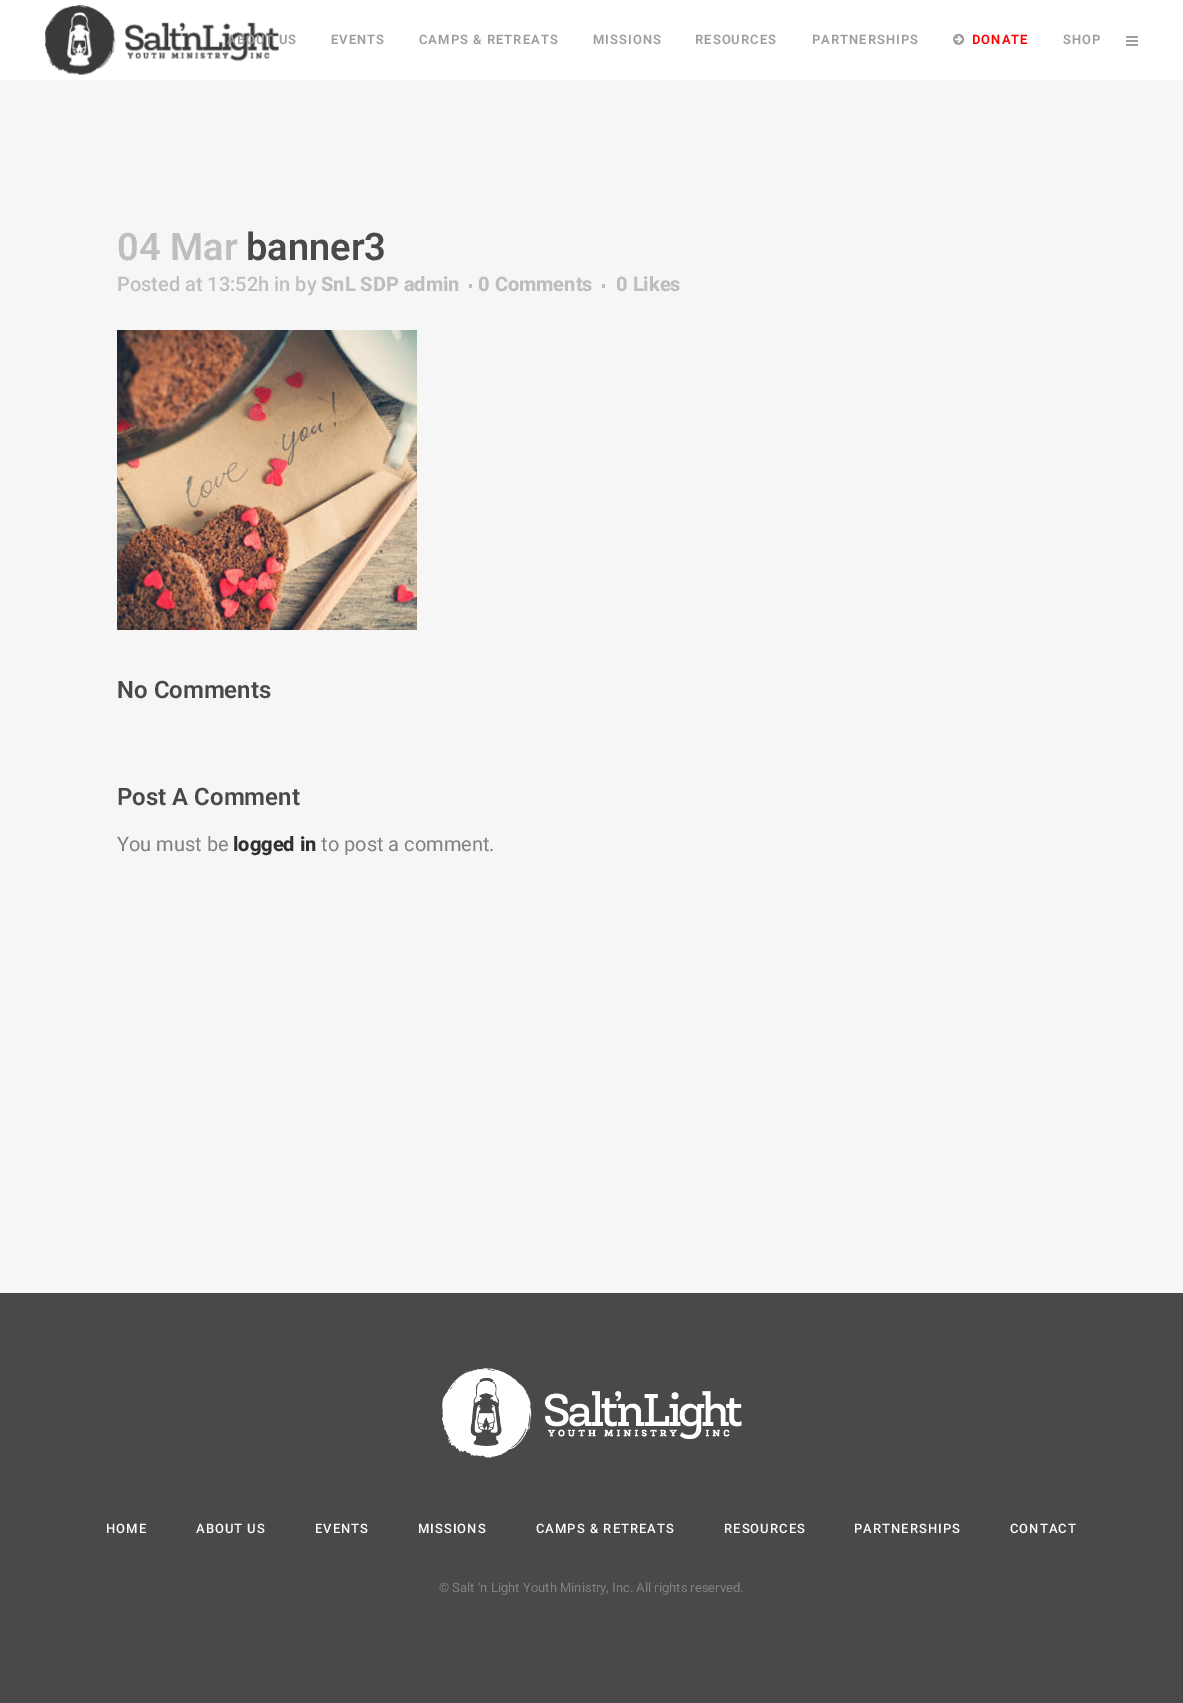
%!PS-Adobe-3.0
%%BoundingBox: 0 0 1183 1703
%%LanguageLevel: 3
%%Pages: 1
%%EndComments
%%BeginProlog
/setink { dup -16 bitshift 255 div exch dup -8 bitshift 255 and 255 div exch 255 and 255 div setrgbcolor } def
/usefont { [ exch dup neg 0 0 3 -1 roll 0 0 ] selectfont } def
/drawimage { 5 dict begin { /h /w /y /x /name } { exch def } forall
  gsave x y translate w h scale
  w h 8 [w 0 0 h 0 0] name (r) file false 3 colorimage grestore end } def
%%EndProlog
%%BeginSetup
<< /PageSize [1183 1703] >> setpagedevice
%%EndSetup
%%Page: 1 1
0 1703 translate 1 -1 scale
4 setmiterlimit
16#F6F6F6 setink
0 0 1183 1703 rectfill
16#FFFFFF setink
0 0 1183 80 rectfill
(img1.raw) 45 5 234 70 drawimage
/Roboto-SemiBold 13 usefont
16#9D9D9D setink
227 44 moveto 1 0 (ABOUT US) ashow
331 44 moveto 1 0 (EVENTS) ashow
419 44 moveto 1 0 (CAMPS & RETREATS) ashow
593 44 moveto 1 0 (MISSIONS) ashow
695 44 moveto 1 0 (RESOURCES) ashow
812 44 moveto 1 0 (PARTNERSHIPS) ashow
(img2.raw) 953 33 12 12 drawimage
16#FF0000 setink
972 44 moveto 1 0 (DONATE) ashow
16#9D9D9D setink
1063 44 moveto 1 0 (SHOP) ashow
(img3.raw) 1126 36 12 10 drawimage
/Roboto-SemiBold 38 usefont
16#BEBEBE setink
117 260 moveto (04 Mar) show
16#494949 setink
246 260 moveto (banner3) show
/Roboto-Medium 20 usefont
16#BEBEBE setink
117 291 moveto (Posted at 13:52h in by) show
/Roboto-ExtraBold 20 usefont
321 291 moveto (SnL SDP admin) show
469 284 3 4 rectfill
478 291 moveto (0 Comments) show
602 284 3 4 rectfill
616 291 moveto (0 Likes) show
(img4.raw) 117 330 300 300 drawimage
/Roboto-SemiBold 24 usefont
16#494949 setink
117 698 moveto (No Comments) show
117 805 moveto (Post A Comment) show
/Roboto-Regular 20 usefont
16#818181 setink
117 851 moveto (You must be) show
/Roboto-ExtraBold 20 usefont
16#303030 setink
233 851 moveto (logged in) show
/Roboto-Regular 20 usefont
16#818181 setink
321 851 moveto (to post a comment.) show
16#494949 setink
0 1293 1183 410 rectfill
(img5.raw) 442 1368 300 90 drawimage
/Roboto-Medium 13 usefont
16#FFFFFF setink
106 1533 moveto 1 0 (HOME) ashow
196 1533 moveto 1 0 (ABOUT US) ashow
315 1533 moveto 1 0 (EVENTS) ashow
418 1533 moveto 1 0 (MISSIONS) ashow
536 1533 moveto 1 0 (CAMPS & RETREATS) ashow
724 1533 moveto 1 0 (RESOURCES) ashow
854 1533 moveto 1 0 (PARTNERSHIPS) ashow
1010 1533 moveto 1 0 (CONTACT) ashow
/Roboto-Regular 13 usefont
16#818181 setink
439 1592 moveto (© Salt ‘n Light Youth Ministry, Inc. All rights reserved.) show
showpage
%%EOF
